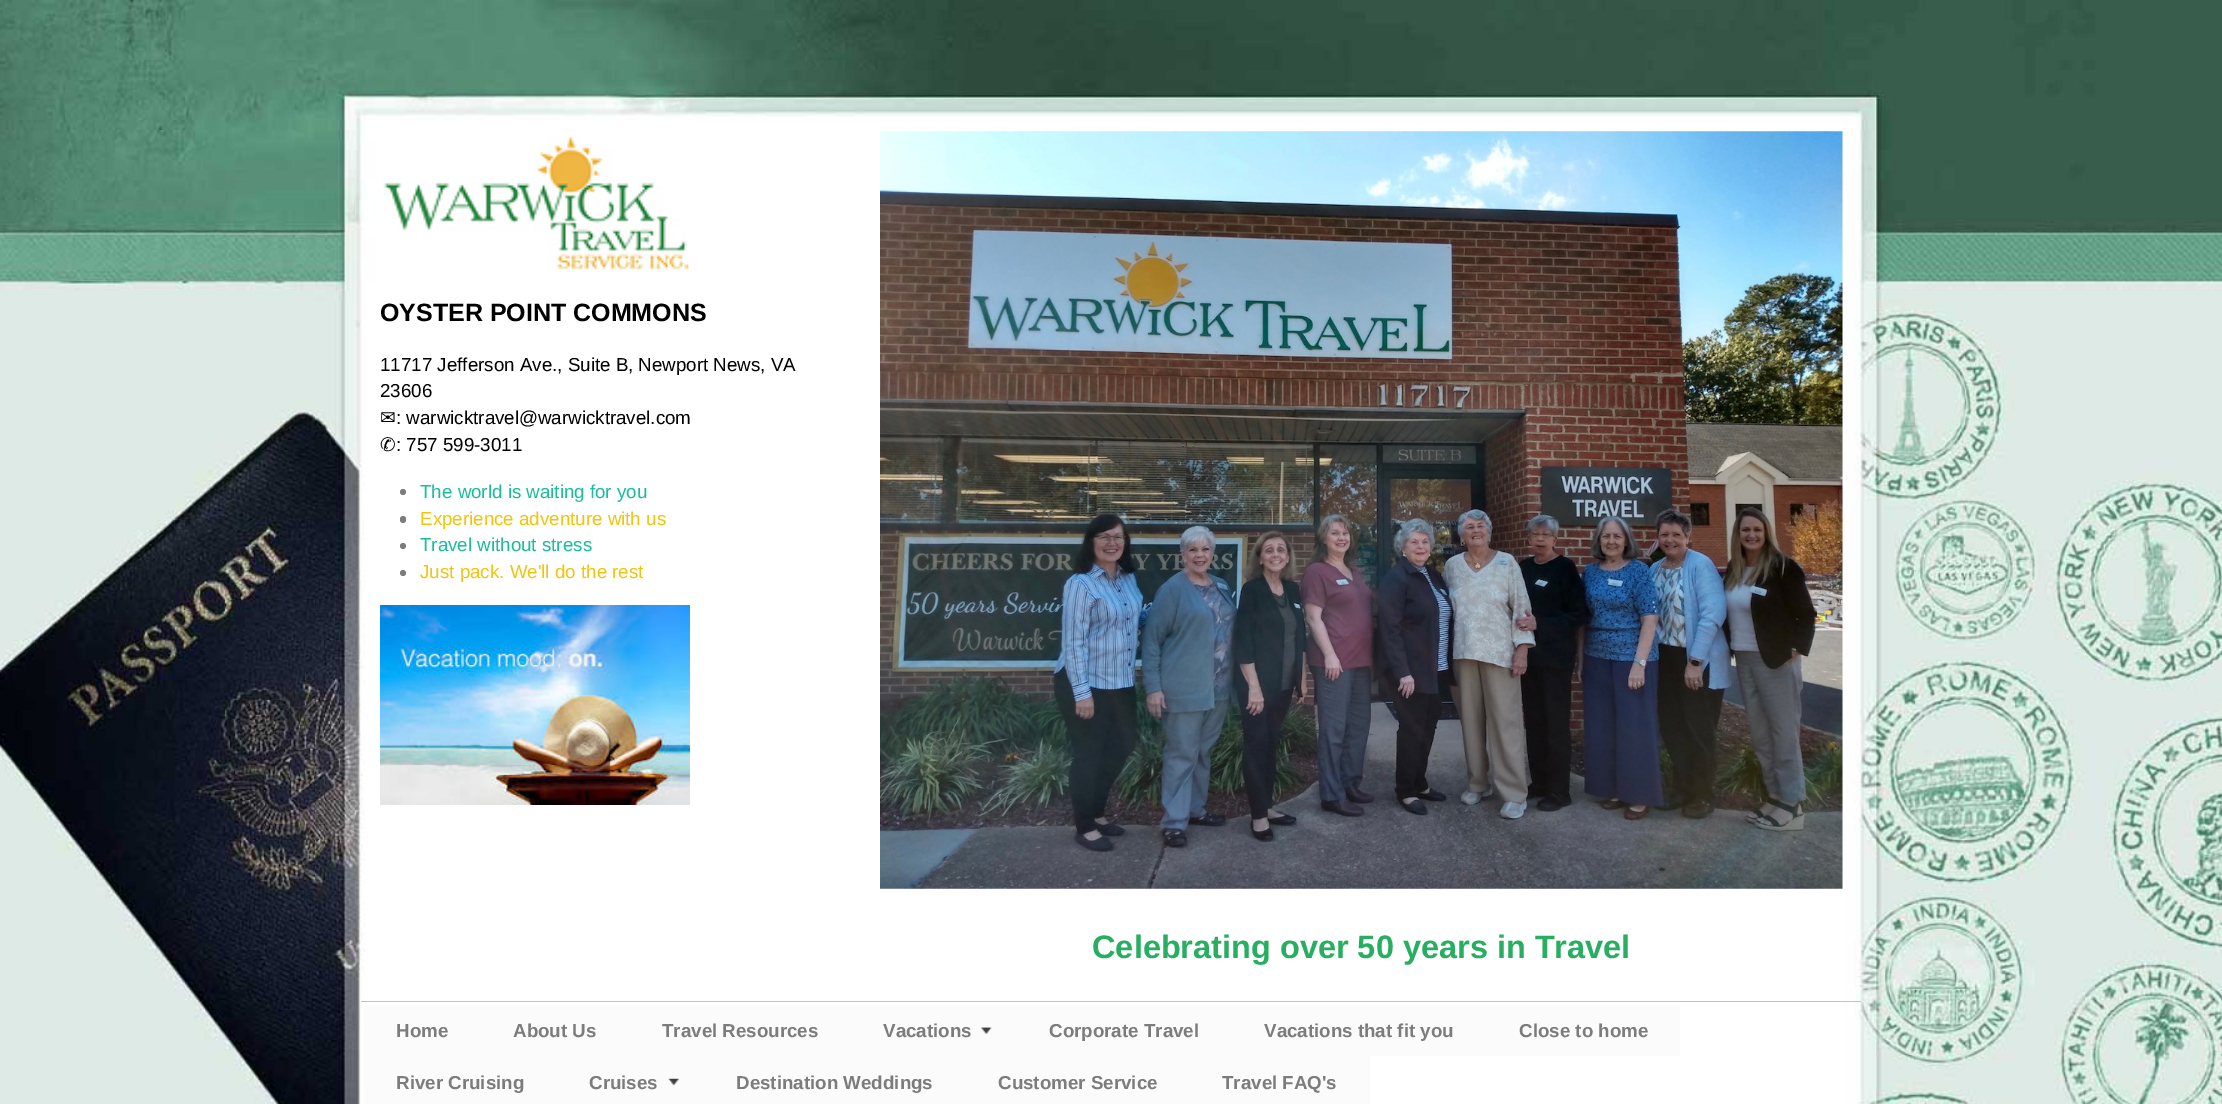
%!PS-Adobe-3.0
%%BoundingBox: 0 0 2222 1104
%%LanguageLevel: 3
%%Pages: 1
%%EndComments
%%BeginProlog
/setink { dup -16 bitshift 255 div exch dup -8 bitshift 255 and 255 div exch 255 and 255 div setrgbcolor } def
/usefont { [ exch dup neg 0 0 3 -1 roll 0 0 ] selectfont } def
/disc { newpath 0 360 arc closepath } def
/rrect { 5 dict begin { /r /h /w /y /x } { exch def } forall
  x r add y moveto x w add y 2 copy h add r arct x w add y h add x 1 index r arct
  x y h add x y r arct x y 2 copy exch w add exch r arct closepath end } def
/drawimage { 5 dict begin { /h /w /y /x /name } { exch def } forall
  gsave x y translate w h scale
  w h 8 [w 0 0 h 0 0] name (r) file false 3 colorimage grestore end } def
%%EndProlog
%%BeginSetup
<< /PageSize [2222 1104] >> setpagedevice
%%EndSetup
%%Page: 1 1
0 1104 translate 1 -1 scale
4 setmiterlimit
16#FFFFFF setink
0 0 2222 1104 rectfill
(img1.raw) 0 0 2222 1104 drawimage
(img2.raw) 383 135 306 135 drawimage
/LiberationSans-Bold 25 usefont
16#000000 setink
380 321 moveto (OYSTER POINT COMMONS) show
/LiberationSans-Regular 18.75 usefont
380 371 moveto (11717 Jefferson Ave., Suite B, Newport News, VA) show
380 397 moveto (23606) show
/DejaVuSans-Regular 18.75 usefont
380 424 moveto (✉) show
/LiberationSans-Regular 18.75 usefont
396 424 moveto (: warwicktravel@warwicktravel.com) show
/DejaVuSans-Regular 18.75 usefont
380 451 moveto (✆) show
/LiberationSans-Regular 18.75 usefont
396 451 moveto (: 757 599-3011) show
16#7C7C7C setink
403 492 3 disc fill
16#1ABC9C setink
420 498 moveto (The world is waiting for you) show
16#7C7C7C setink
400 516 6 7 3 rrect fill
16#F1C40F setink
420 525 moveto (Experience adventure with us) show
16#7C7C7C setink
403 546 3 disc fill
16#1ABC9C setink
420 551 moveto (Travel without stress) show
16#7C7C7C setink
403 573 3 disc fill
16#F1C40F setink
420 578 moveto (Just pack. We'll do the rest) show
(img3.raw) 380 605 310 200 drawimage
(img4.raw) 880 131 963 758 drawimage
/LiberationSans-Bold 32.5 usefont
16#27AE60 setink
1092 958 moveto (Celebrating over 50 years in Travel) show
16#C2C2C2 setink
361 1001 1500 1 rectfill
16#FBFBFB setink
364 1005 1316 51 rectfill
/LiberationSans-Bold 18.75 usefont
16#7C7C7C setink
[
    [(Home) 396 1037]
    [(About Us) 513 1037]
    [(Travel Resources) 662 1037]
] { aload pop moveto show } forall
(img5.raw) 981 1027 11 7 drawimage
[
    [(Vacations) 883 1037]
    [(Corporate Travel) 1049 1037]
    [(Vacations that fit you) 1264 1037]
    [(Close to home) 1519 1037]
] { aload pop moveto show } forall
16#FBFBFB setink
364 1056 1006 48 rectfill
16#7C7C7C setink
396 1089 moveto (River Cruising) show
(img6.raw) 668 1078 11 8 drawimage
[
    [(Cruises) 589 1089]
    [(Destination Weddings) 736 1089]
    [(Customer Service) 998 1089]
    [(Travel FAQ's) 1222 1089]
] { aload pop moveto show } forall
showpage
%%EOF
